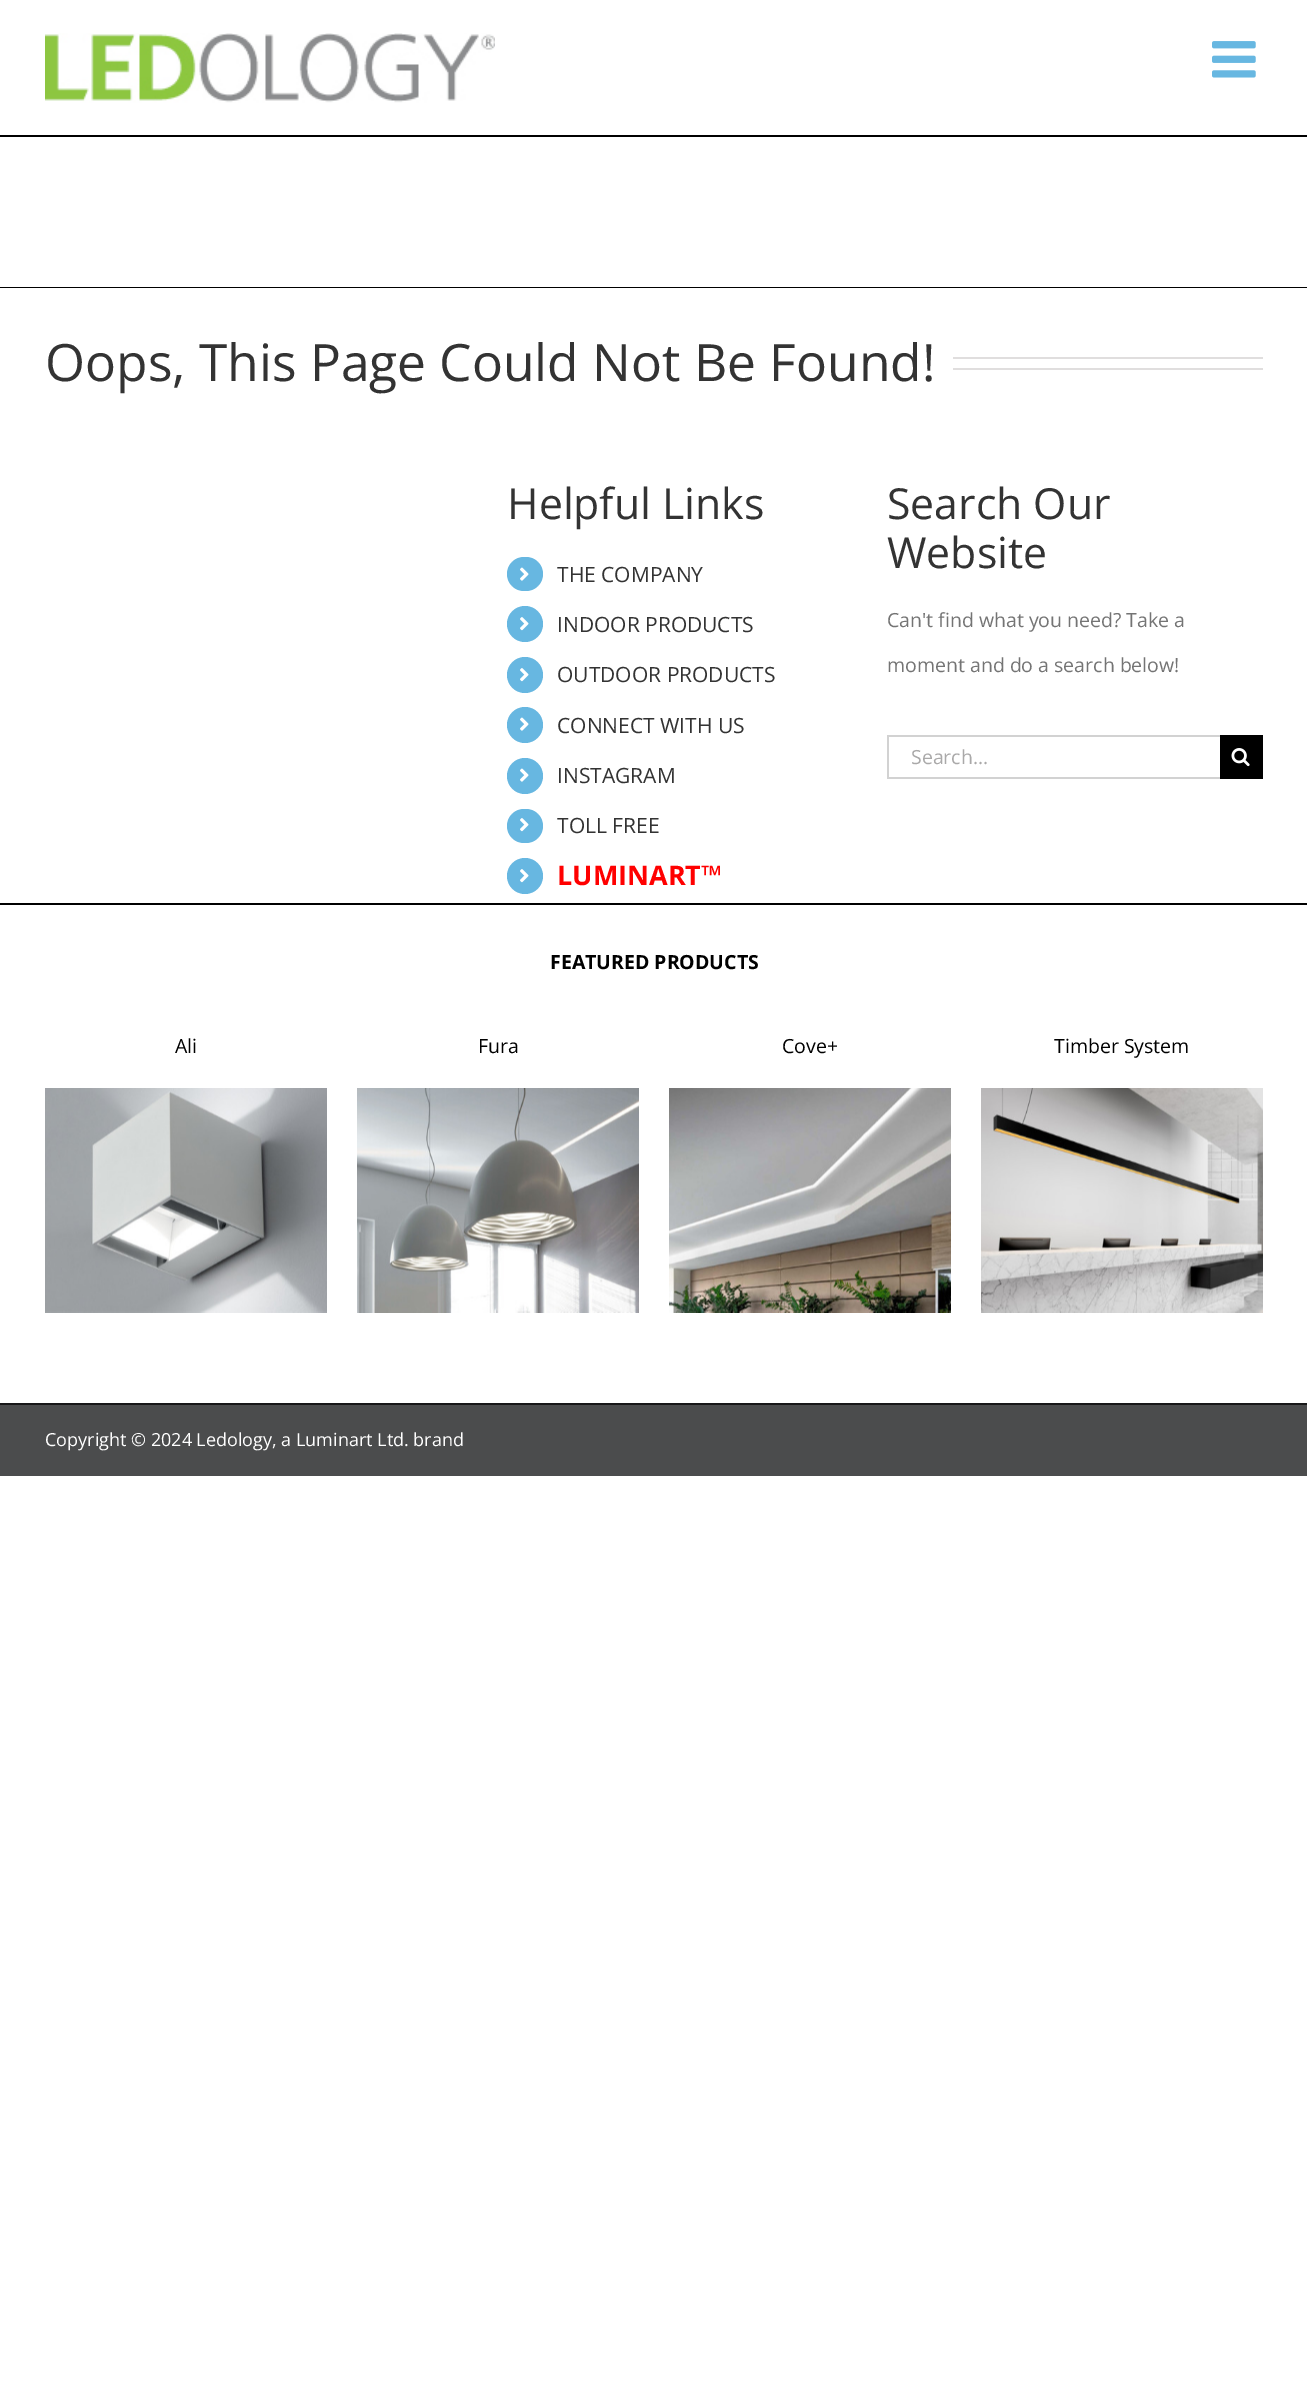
%!PS-Adobe-3.0
%%BoundingBox: 0 0 1307 2381
%%LanguageLevel: 3
%%Pages: 1
%%EndComments
%%BeginProlog
/setink { dup -16 bitshift 255 div exch dup -8 bitshift 255 and 255 div exch 255 and 255 div setrgbcolor } def
/usefont { [ exch dup neg 0 0 3 -1 roll 0 0 ] selectfont } def
/disc { newpath 0 360 arc closepath } def
/rrect { 5 dict begin { /r /h /w /y /x } { exch def } forall
  x r add y moveto x w add y 2 copy h add r arct x w add y h add x 1 index r arct
  x y h add x y r arct x y 2 copy exch w add exch r arct closepath end } def
/drawimage { 5 dict begin { /h /w /y /x /name } { exch def } forall
  gsave x y translate w h scale
  w h 8 [w 0 0 h 0 0] name (r) file false 3 colorimage grestore end } def
%%EndProlog
%%BeginSetup
<< /PageSize [1307 2381] >> setpagedevice
%%EndSetup
%%Page: 1 1
0 2381 translate 1 -1 scale
4 setmiterlimit
16#FFFFFF setink
0 0 1307 2381 rectfill
(img1.raw) 45 33 450 70 drawimage
(img2.raw) 1212 41 44 37 drawimage
16#000000 setink
0 135 1307 2 rectfill
0 287 1307 1 rectfill
/OpenSans-Regular 51.5 usefont
16#333333 setink
45 381 moveto (Oops, This Page Could Not Be Found!) show
16#E0DEDE setink
953 357 310 2 rectfill
953 368 310 2 rectfill
/OpenSans-Regular 42.75 usefont
16#333333 setink
507 519 moveto (Helpful Links) show
16#67B7E1 setink
507 557 36 34 17 rrect fill
(img3.raw) 520 567 9 14 drawimage
/OpenSans-Regular 21 usefont
16#333333 setink
557 582 moveto (THE COMPANY) show
16#67B7E1 setink
525 624 18 disc fill
(img4.raw) 520 617 9 14 drawimage
16#333333 setink
557 632 moveto (INDOOR PRODUCTS) show
16#67B7E1 setink
525 675 18 disc fill
(img4.raw) 520 668 9 14 drawimage
16#333333 setink
557 682 moveto (OUTDOOR PRODUCTS) show
16#67B7E1 setink
525 725 18 disc fill
(img3.raw) 520 717 9 14 drawimage
16#333333 setink
557 733 moveto (CONNECT WITH US) show
16#67B7E1 setink
525 776 18 disc fill
(img3.raw) 520 768 9 14 drawimage
16#333333 setink
557 783 moveto (INSTAGRAM) show
16#67B7E1 setink
507 809 36 34 17 rrect fill
(img4.raw) 520 818 9 14 drawimage
16#333333 setink
557 833 moveto (TOLL FREE) show
16#67B7E1 setink
525 876 18 disc fill
(img4.raw) 520 869 9 14 drawimage
/OpenSans-Bold 27 usefont
16#FF0000 setink
557 885 moveto (LUMINART™) show
/OpenSans-Regular 42.75 usefont
16#333333 setink
887 519 moveto (Search Our) show
887 568 moveto (Website) show
/OpenSans-Regular 19.5 usefont
16#747474 setink
887 627 moveto (Can't find what you need? Take a) show
887 672 moveto (moment and do a search below!) show
[
    [887 735 333 2 16#D2D2D2]
    [887 777 333 2 16#D2D2D2]
    [887 735 2 44 16#D2D2D2]
] { aload pop setink rectfill } forall
16#AAA9A9 setink
911 764 moveto (Search...) show
16#000000 setink
1220 735 43 44 rectfill
(img5.raw) 1231 748 19 19 drawimage
0 903 1307 2 rectfill
/OpenSans-Bold 19.5 usefont
550 969 moveto (FEATURED PRODUCTS) show
/OpenSans-Regular 19.5 usefont
175 1053 moveto (Ali) show
(img6.raw) 45 1088 282 225 drawimage
478 1053 moveto (Fura) show
(img7.raw) 357 1088 282 225 drawimage
782 1053 moveto (Cove+) show
(img8.raw) 669 1088 282 225 drawimage
1054 1053 moveto (Timber System) show
(img9.raw) 981 1088 282 225 drawimage
16#4B4C4D setink
0 1405 1307 71 rectfill
16#181819 setink
0 1403 1307 2 rectfill
/OpenSans-Regular 18 usefont
16#FFFFFF setink
45 1446 moveto (Copyright © 2024 Ledology, a Luminart Ltd. brand) show
showpage
%%EOF
